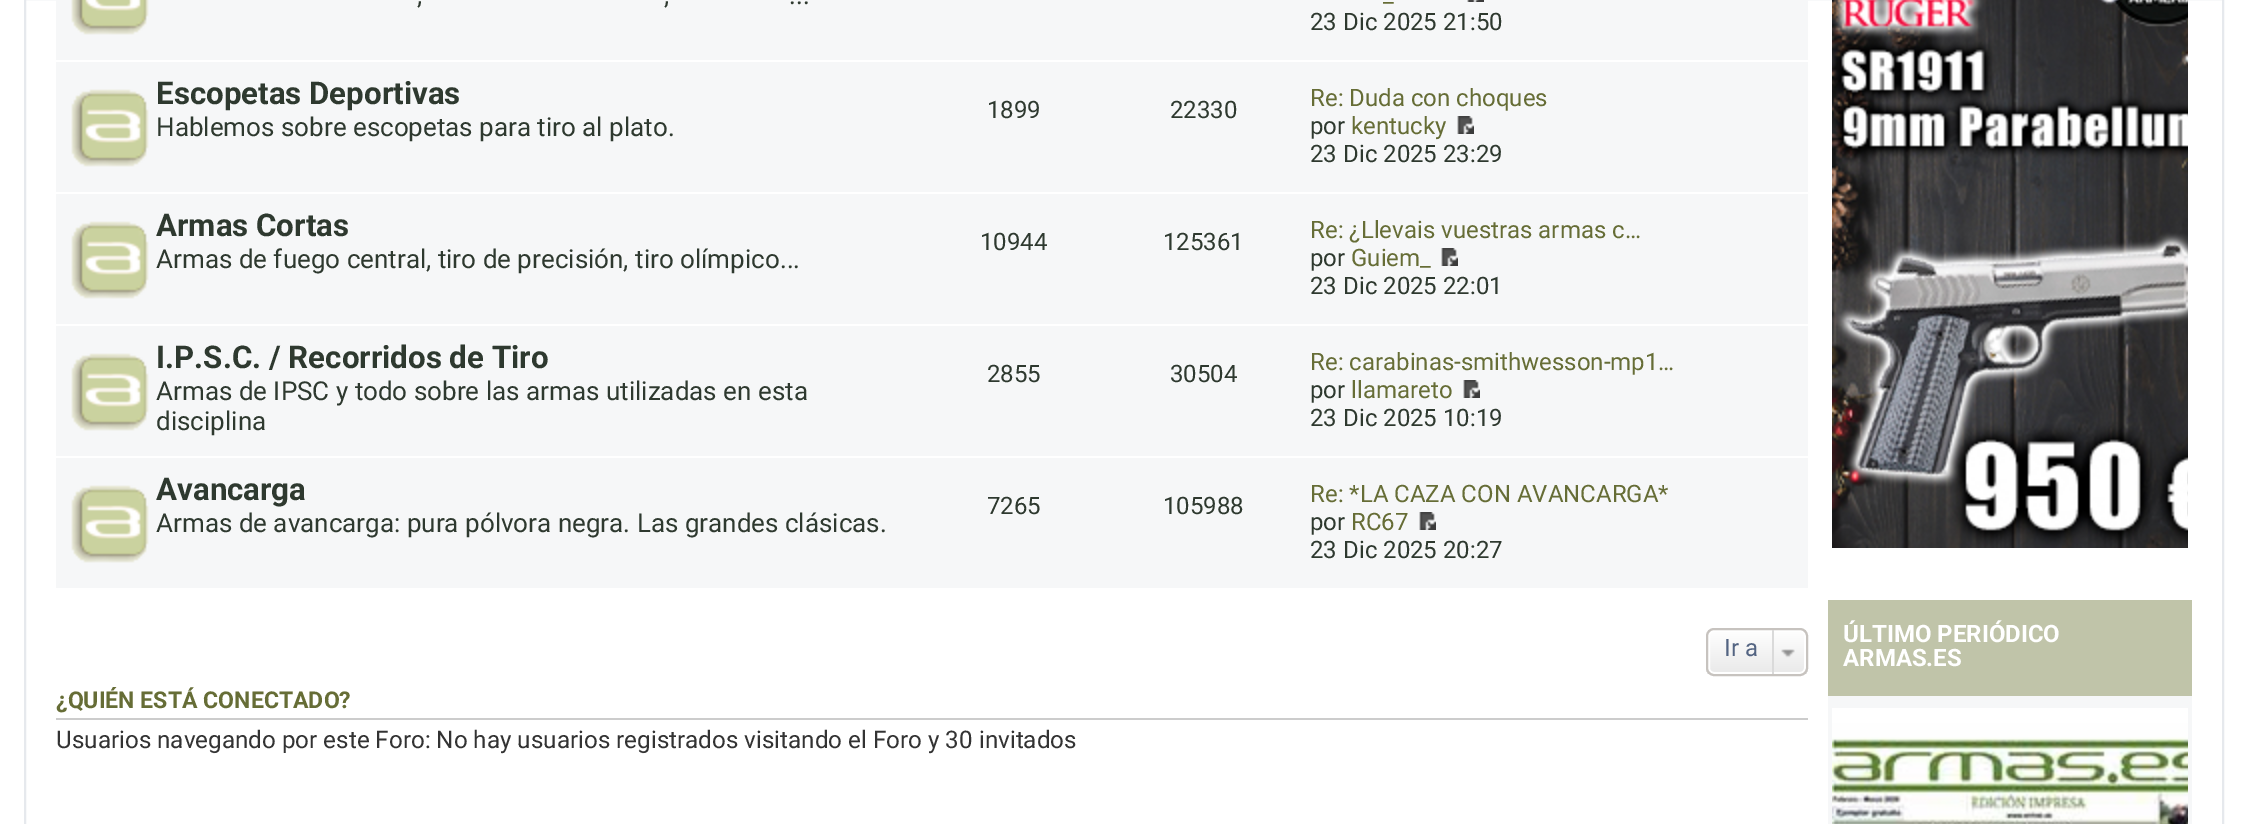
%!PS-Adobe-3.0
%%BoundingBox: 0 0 2247 824
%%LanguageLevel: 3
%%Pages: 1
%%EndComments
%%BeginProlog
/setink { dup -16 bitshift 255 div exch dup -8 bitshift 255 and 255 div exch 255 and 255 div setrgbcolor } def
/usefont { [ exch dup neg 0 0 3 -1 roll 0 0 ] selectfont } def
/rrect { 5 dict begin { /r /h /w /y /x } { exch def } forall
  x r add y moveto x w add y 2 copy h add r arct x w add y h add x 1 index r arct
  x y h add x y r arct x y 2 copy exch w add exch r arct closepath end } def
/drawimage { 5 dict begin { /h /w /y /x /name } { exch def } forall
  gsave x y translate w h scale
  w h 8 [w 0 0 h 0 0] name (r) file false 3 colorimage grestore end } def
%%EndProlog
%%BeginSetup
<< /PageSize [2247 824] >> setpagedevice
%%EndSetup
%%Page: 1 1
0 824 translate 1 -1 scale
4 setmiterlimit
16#FFFFFF setink
0 0 2247 824 rectfill
16#E6E9ED setink
2 setlinewidth
25 -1 2198 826 rectstroke
16#F6F7F8 setink
56 0 1752 588 rectfill
(img1.raw) 71 0 78 35 drawimage
/Roboto-Regular 26 usefont
16#2E392F setink
[
    [(,) 417 4]
    [(,) 664 4]
    [(...) 789 4]
] { aload pop moveto show } forall
(img2.raw) 1467 0 17 2 drawimage
/Roboto-Regular 24 usefont
16#666D36 setink
1383 2 moveto (_) show
16#2E392F setink
1310 30 moveto (23 Dic 2025 21:50) show
16#FFFFFF setink
56 60 1752 2 rectfill
(img3.raw) 71 89 78 78 drawimage
/Roboto-Bold 31.25 usefont
16#2E392F setink
156 104 moveto (Escopetas Deportivas) show
/Roboto-Regular 26 usefont
156 136 moveto (Hablemos sobre escopetas para tiro al plato.) show
/Roboto-Regular 24 usefont
987 118 moveto (1899) show
1170 118 moveto (22330) show
16#666D36 setink
1310 106 moveto (Re: Duda con choques) show
16#2E392F setink
1310 134 moveto (por) show
16#666D36 setink
1351 134 moveto (kentucky) show
(img4.raw) 1457 116 17 18 drawimage
16#2E392F setink
1310 162 moveto (23 Dic 2025 23:29) show
16#FFFFFF setink
56 192 1752 2 rectfill
(img3.raw) 71 221 78 78 drawimage
/Roboto-Bold 31.25 usefont
16#2E392F setink
156 236 moveto (Armas Cortas) show
/Roboto-Regular 26 usefont
156 268 moveto (Armas de fuego central, tiro de precisión, tiro olímpico...) show
/Roboto-Regular 24 usefont
980 250 moveto (10944) show
1163 250 moveto (125361) show
16#666D36 setink
1310 238 moveto (Re: ¿Llevais vuestras armas c…) show
16#2E392F setink
1310 266 moveto (por) show
16#666D36 setink
1351 266 moveto (Guiem_) show
(img4.raw) 1441 248 17 18 drawimage
16#2E392F setink
1310 294 moveto (23 Dic 2025 22:01) show
16#FFFFFF setink
56 324 1752 2 rectfill
(img3.raw) 71 353 78 78 drawimage
/Roboto-Bold 31.25 usefont
16#2E392F setink
156 368 moveto (I.P.S.C. / Recorridos de Tiro) show
/Roboto-Regular 26 usefont
156 400 moveto (Armas de IPSC y todo sobre las armas utilizadas en esta) show
156 430 moveto (disciplina) show
/Roboto-Regular 24 usefont
987 382 moveto (2855) show
1170 382 moveto (30504) show
16#666D36 setink
1310 370 moveto (Re: carabinas-smithwesson-mp1…) show
16#2E392F setink
1310 398 moveto (por) show
16#666D36 setink
1351 398 moveto (llamareto) show
(img4.raw) 1463 380 17 18 drawimage
16#2E392F setink
1310 426 moveto (23 Dic 2025 10:19) show
16#FFFFFF setink
56 456 1752 2 rectfill
(img3.raw) 71 485 78 78 drawimage
/Roboto-Bold 31.25 usefont
16#2E392F setink
156 500 moveto (Avancarga) show
/Roboto-Regular 26 usefont
156 532 moveto (Armas de avancarga: pura pólvora negra. Las grandes clásicas.) show
/Roboto-Regular 24 usefont
987 514 moveto (7265) show
1163 514 moveto (105988) show
16#666D36 setink
1310 502 moveto (Re: *LA CAZA CON AVANCARGA*) show
16#2E392F setink
1310 530 moveto (por) show
16#666D36 setink
1351 530 moveto (RC67) show
(img4.raw) 1419 512 17 18 drawimage
16#2E392F setink
1310 558 moveto (23 Dic 2025 20:27) show
gsave
1706 628 102 48 8 rrect clip newpath
gsave 1706 630 moveto 1808 630 lineto 1808 674 lineto 1706 674 lineto closepath clip newpath
<< /ShadingType 2 /ColorSpace /DeviceRGB /Coords [1757 630 1757 674] /Extend [true true] /Function << /FunctionType 2 /Domain [0 1] /C0 [1 1 1] /C1 [0.914 0.914 0.914] /N 1 >> >> shfill grestore
grestore
16#FFFFFF setink
1709 631 96 42 5 rrect stroke
16#C7C3BF setink
1707 629 100 46 7 rrect stroke
16#536482 setink
1724 656 moveto (Ir a) show
(img5.raw) 1781 649 14 9 drawimage
16#DADADA setink
1772 630 2 44 rectfill
16#CCCCCC setink
56 718 1752 2 rectfill
/Roboto-Bold 23.1 usefont
16#666D36 setink
56 708 moveto (¿QUIÉN ESTÁ CONECTADO?) show
/Roboto-Regular 24.2 usefont
16#333333 setink
56 748 moveto (Usuarios navegando por este Foro: No hay usuarios registrados visitando el Foro y 30 invitados) show
(img6.raw) 1832 0 356 548 drawimage
16#C0C4A9 setink
1828 600 364 96 rectfill
/Roboto-Bold 24 usefont
16#FFFFFF setink
1843 642 moveto (ÚLTIMO PERIÓDICO) show
1843 666 moveto (ARMAS.ES) show
16#F6F7F8 setink
1828 696 364 128 rectfill
(img7.raw) 1832 708 356 116 drawimage
showpage
%%EOF
